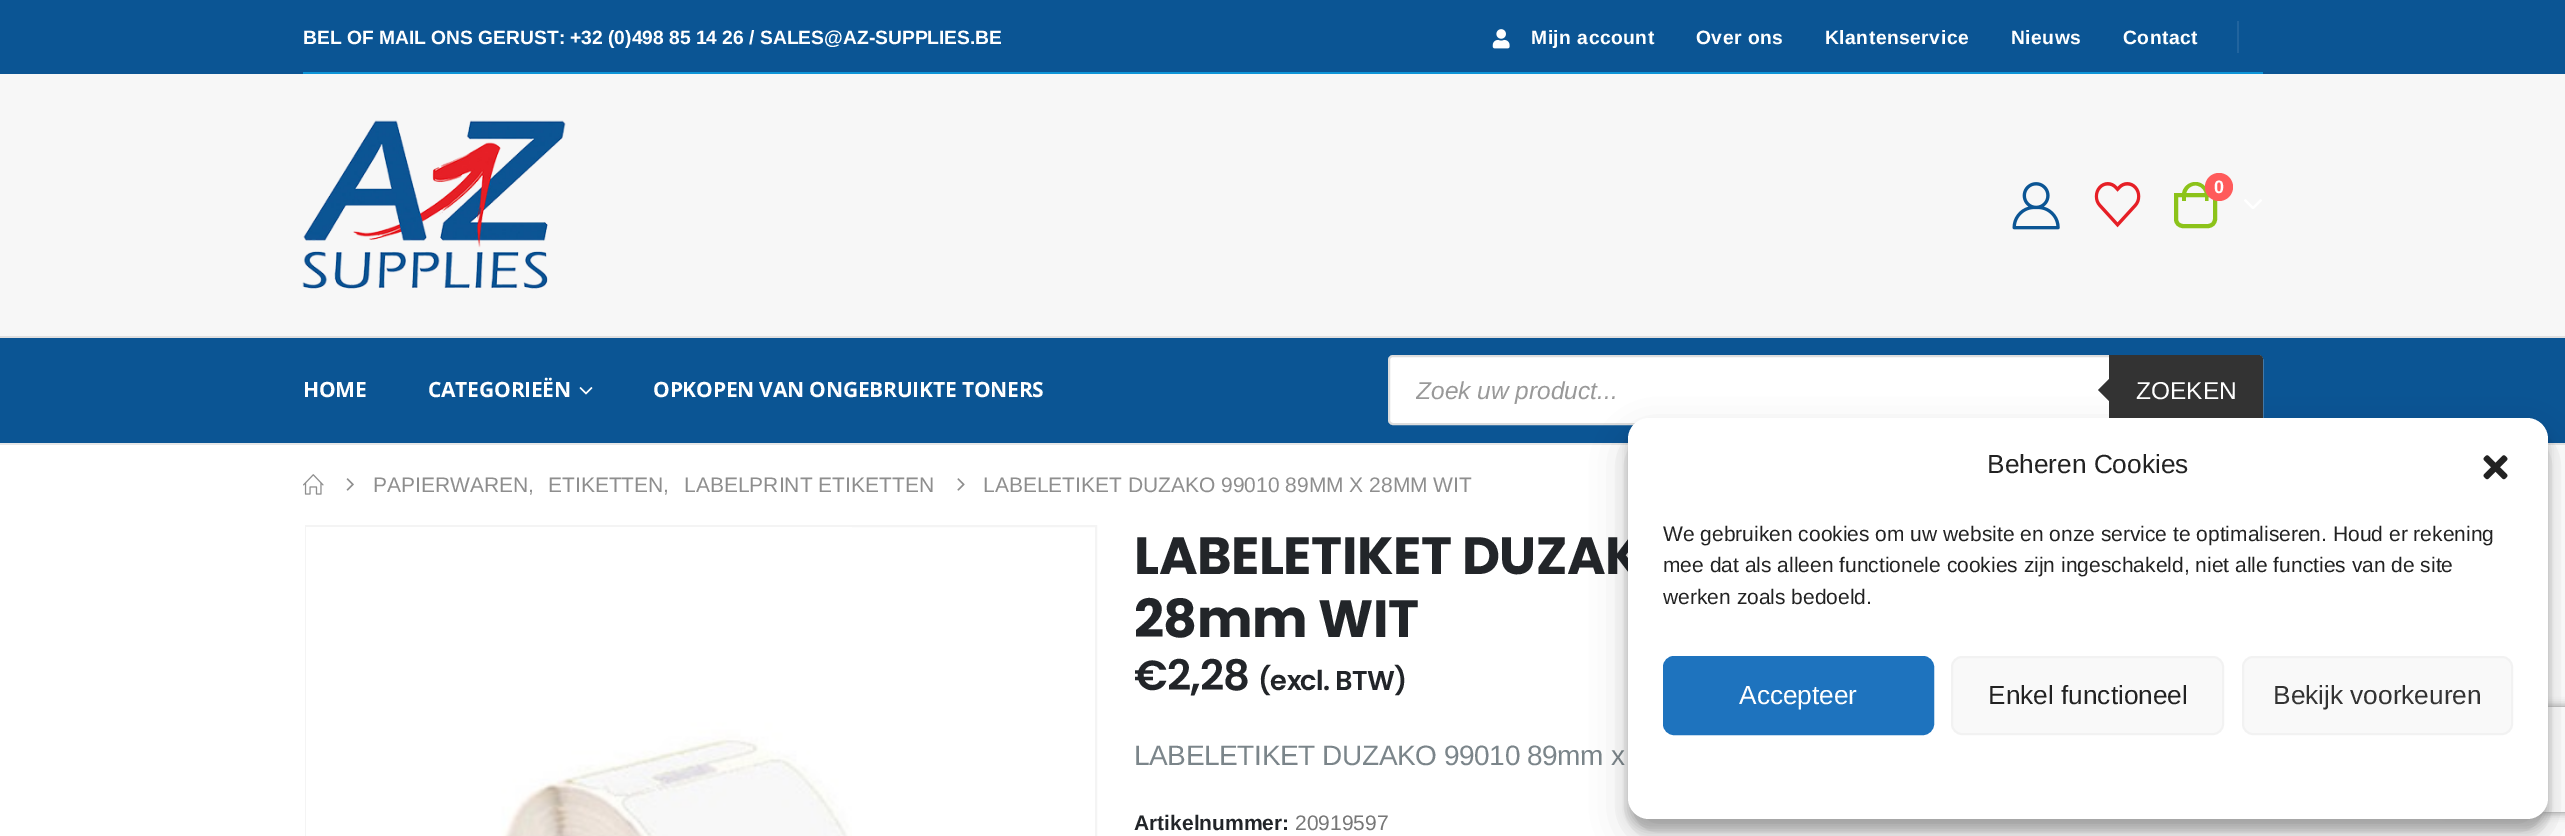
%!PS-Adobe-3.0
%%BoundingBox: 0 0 2565 836
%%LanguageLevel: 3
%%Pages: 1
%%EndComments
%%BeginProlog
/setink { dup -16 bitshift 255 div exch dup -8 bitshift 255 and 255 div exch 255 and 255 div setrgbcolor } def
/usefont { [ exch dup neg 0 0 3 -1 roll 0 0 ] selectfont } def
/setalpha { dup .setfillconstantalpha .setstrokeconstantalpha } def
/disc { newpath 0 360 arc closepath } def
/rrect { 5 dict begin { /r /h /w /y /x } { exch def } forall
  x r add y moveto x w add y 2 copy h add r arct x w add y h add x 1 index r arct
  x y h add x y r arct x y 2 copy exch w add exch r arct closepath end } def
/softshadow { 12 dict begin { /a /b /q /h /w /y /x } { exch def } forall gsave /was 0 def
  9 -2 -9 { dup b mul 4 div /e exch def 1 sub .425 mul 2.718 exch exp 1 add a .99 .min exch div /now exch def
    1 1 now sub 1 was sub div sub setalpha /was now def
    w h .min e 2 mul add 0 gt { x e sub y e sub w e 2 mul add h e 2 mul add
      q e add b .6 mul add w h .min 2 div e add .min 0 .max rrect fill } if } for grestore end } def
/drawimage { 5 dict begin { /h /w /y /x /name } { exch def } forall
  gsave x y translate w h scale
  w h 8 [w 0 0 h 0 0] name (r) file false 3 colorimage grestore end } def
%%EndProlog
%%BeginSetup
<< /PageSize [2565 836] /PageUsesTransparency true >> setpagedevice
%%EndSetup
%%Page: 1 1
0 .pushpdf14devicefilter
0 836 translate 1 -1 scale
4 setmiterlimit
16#FFFFFF setink
0 0 2565 836 rectfill
16#E7E7E7 setink
0 443 2565 2 rectfill
16#0B5594 setink
0 0 2565 74 rectfill
/LiberationSans-Bold 19.25 usefont
16#FFFFFF setink
303 44 moveto (BEL OF MAIL ONS GERUST:) show
570 44 moveto (+32 \(0\)498 85 14 26 / SALES@AZ-SUPPLIES.BE) show
(img1.raw) 1492 29 18 20 drawimage
1531 44 moveto 0.5 0 (Mijn account) ashow
1696 44 moveto 0.5 0 (Over ons) ashow
1825 44 moveto 0.5 0 (Klantenservice) ashow
2011 44 moveto 0.5 0 (Nieuws) ashow
2123 44 moveto 0.5 0 (Contact) ashow
[
    [2237 21 2 32 16#21649E]
    [303 72 1960 2 16#0E95D8]
    [0 74 2565 262 16#F7F7F7]
    [0 336 2565 2 16#E0DFDF]
] { aload pop setink rectfill } forall
(img2.raw) 302 120 264 169 drawimage
(img3.raw) 2012 182 48 48 drawimage
(img4.raw) 2094 182 47 46 drawimage
16#8CC31A setink
4 setlinewidth
2176 195 moveto 2215 195 lineto 2215 219 lineto 2215 223 2212 226 2208 226 curveto 2183 226 lineto 2179 226 2176 223 2176 219 curveto closepath stroke
2195.5 182 moveto 2202.5 182 2208.5 188 2208.5 195 curveto 2208.5 201 lineto 2182 201 lineto 2182 195 lineto 2182 188 2188 182 2195.5 182 curveto closepath 2195.5 185.5 moveto 2200.5 185.5 2205 190 2205 195 curveto 2205 201 lineto 2186 201 lineto 2186 195 lineto 2186 190 2190 185.5 2195.5 185.5 curveto closepath eofill
16#FF5B5B setink
2219 187 14 disc fill
/LiberationSans-Bold 18 usefont
16#FFFFFF setink
2214 193 moveto (0) show
(img5.raw) 2244 199 18 10 drawimage
16#0B5594 setink
0 338 2565 105 rectfill
/OpenSans-Bold 21 usefont
16#FFFFFF setink
303 397 moveto -0.2 0 (HOME) ashow
428 397 moveto -0.2 0 (CATEGORIEËN) ashow
(img6.raw) 579 387 14 8 drawimage
653 397 moveto -0.2 0 (OPKOPEN VAN ONGEBRUIKTE TONERS) ashow
1389 356 873 68 4 rrect gsave fill grestore
16#DDDDDD setink
2 setlinewidth
stroke
gsave
1416 376 819 28 rectclip
/LiberationSans-Italic 24.5 usefont
16#999999 setink
1416 399 moveto (Zoek uw product...) show
grestore
16#333333 setink
2109 355 moveto 2259 355 lineto 2261 355 2263 357 2263 359 curveto 2263 421 lineto 2263 423 2261 425 2259 425 curveto 2109 425 lineto closepath fill
2112 376 moveto 2112 404 lineto 2098 390 lineto closepath fill
/LiberationSans-Regular 24.5 usefont
16#FFFFFF setink
2136 399 moveto (ZOEKEN) show
(img7.raw) 303 474 21 21 drawimage
(img8.raw) 346 478 8 13 drawimage
/LiberationSans-Regular 21 usefont
16#8E8E8E setink
[
    [(PAPIERWAREN,) 373 492]
    [(ETIKETTEN,) 548 492]
    [(LABELPRINT ETIKETTEN) 684 492]
] { aload pop moveto show } forall
(img9.raw) 957 478 8 13 drawimage
983 492 moveto (LABELETIKET DUZAKO 99010 89MM X 28MM WIT) show
16#F4F4F4 setink
306 526 790 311 rectstroke
(img10.raw) 306 527 546 309 drawimage
/Poppins-Bold 52.5 usefont
16#222529 setink
1134 574 moveto -0.5 0 (LABELETIKET DUZAK) ashow
1134 637 moveto -0.5 0 (28mm WIT) ashow
/Poppins-SemiBold 42 usefont
1134 690 moveto -0.75 0 (€2,28) ashow
/Poppins-SemiBold 27.25 usefont
1258 690 moveto -0.75 0 (\(excl. BTW\)) ashow
/LiberationSans-Regular 28 usefont
16#7B858A setink
1134 765 moveto -0.4 0 (LABELETIKET DUZAKO 99010 89mm x) ashow
/LiberationSans-Bold 21 usefont
16#222529 setink
1134 830 moveto (Artikelnummer:) show
/LiberationSans-Regular 21 usefont
16#777777 setink
1295 830 moveto (20919597) show
16#000000 setink
1628 429 920 401 21 5 0.23 softshadow
1628 436 920 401 21 17.5 0.19 softshadow
gsave
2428 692 moveto 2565 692 lineto 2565 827 lineto 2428 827 lineto closepath 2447 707 moveto 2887 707 lineto 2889 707 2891 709 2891 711 curveto 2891 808 lineto 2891 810 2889 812 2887 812 curveto 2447 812 lineto 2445 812 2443 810 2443 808 curveto 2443 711 lineto 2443 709 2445 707 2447 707 curveto closepath eoclip newpath
16#808080 setink
2443 707 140 105 4 4.5 1 softshadow
grestore
16#FFFFFF setink
1628 418 920 401 21 rrect fill
/LiberationSans-Regular 26.25 usefont
16#222222 setink
1987 473 moveto (Beheren Cookies) show
(img11.raw) 2483 455 25 25 drawimage
/LiberationSans-Regular 21 usefont
[
    [(We gebruiken cookies om uw website en onze service te optimaliseren. Houd er rekening) 1663 541]
    [(mee dat als alleen functionele cookies zijn ingeschakeld, niet alle functies van de site) 1663 572]
    [(werken zoals bedoeld.) 1663 604]
] { aload pop moveto show } forall
16#1E73BE setink
1664 657 269 77 10 rrect gsave fill grestore
stroke
/LiberationSans-Regular 26.25 usefont
16#FFFFFF setink
1739 704 moveto (Accepteer) show
16#F9F9F9 setink
1952 657 271 77 10 rrect gsave fill grestore
16#F2F2F2 setink
stroke
16#222222 setink
1988 704 moveto (Enkel functioneel) show
16#F9F9F9 setink
2243 657 269 77 10 rrect gsave fill grestore
16#F2F2F2 setink
stroke
16#333333 setink
2273 704 moveto (Bekijk voorkeuren) show
.poppdf14devicefilter showpage
%%EOF
